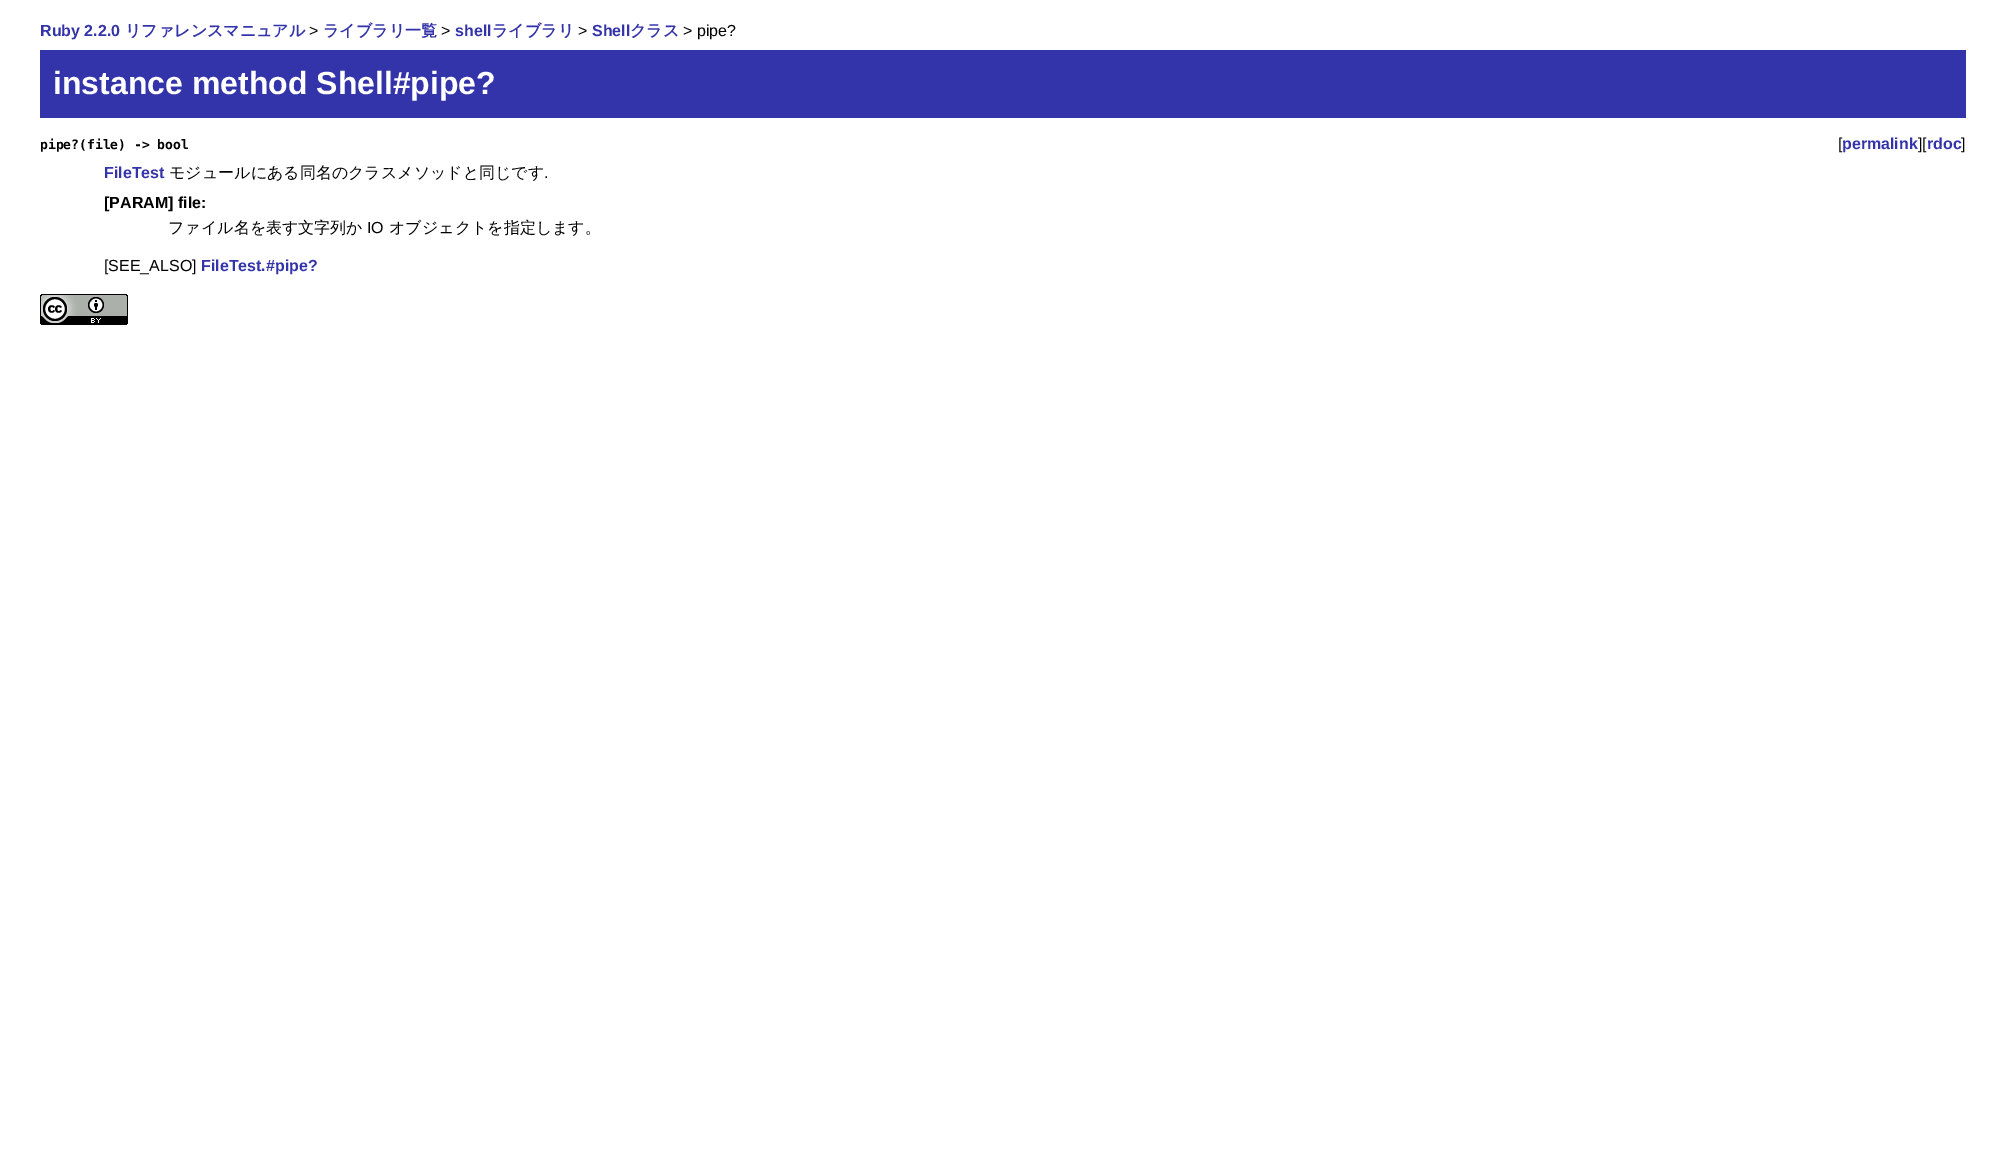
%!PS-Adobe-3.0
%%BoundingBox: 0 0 2006 1153
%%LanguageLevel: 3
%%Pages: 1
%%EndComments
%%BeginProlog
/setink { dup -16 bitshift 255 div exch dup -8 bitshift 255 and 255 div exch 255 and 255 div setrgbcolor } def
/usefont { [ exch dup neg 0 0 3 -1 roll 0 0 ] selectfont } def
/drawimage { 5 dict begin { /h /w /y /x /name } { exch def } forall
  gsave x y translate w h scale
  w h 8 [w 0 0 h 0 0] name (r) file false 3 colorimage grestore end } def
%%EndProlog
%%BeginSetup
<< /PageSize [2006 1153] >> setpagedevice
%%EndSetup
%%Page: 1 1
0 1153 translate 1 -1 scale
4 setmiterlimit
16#FFFFFF setink
0 0 2006 1153 rectfill
/LiberationSans-Bold 16 usefont
16#3333AA setink
40 36 moveto (Ruby 2.2.0) show
/WenQuanYiZenHei-Bold 16 usefont
125 36 moveto (リファレンスマニュアル) show
/LiberationSans-Regular 16 usefont
16#000000 setink
309 36 moveto (>) show
/WenQuanYiZenHei-Bold 16 usefont
16#3333AA setink
323 36 moveto (ライブラリ一覧) show
/LiberationSans-Regular 16 usefont
16#000000 setink
441 36 moveto (>) show
/LiberationSans-Bold 16 usefont
16#3333AA setink
455 36 moveto (shell) show
/WenQuanYiZenHei-Bold 16 usefont
492 36 moveto (ライブラリ) show
/LiberationSans-Regular 16 usefont
16#000000 setink
578 36 moveto (>) show
/LiberationSans-Bold 16 usefont
16#3333AA setink
592 36 moveto (Shell) show
/WenQuanYiZenHei-Bold 16 usefont
630 36 moveto (クラス) show
/LiberationSans-Regular 16 usefont
16#000000 setink
683 36 moveto (> pipe?) show
16#3333AA setink
40 50 1926 68 rectfill
/LiberationSans-Bold 32 usefont
16#FFFFFF setink
53 94 moveto (instance method Shell#pipe?) show
/DejaVuSansMono-Bold 13 usefont
16#000000 setink
40 149 moveto (pipe?\(file\) -> bool) show
/LiberationSans-Regular 16 usefont
1838 149 moveto ([) show
/LiberationSans-Bold 16 usefont
16#3333AA setink
1842 149 moveto (permalink) show
/LiberationSans-Regular 16 usefont
16#000000 setink
1918 149 moveto (][) show
/LiberationSans-Bold 16 usefont
16#3333AA setink
1927 149 moveto (rdoc) show
/LiberationSans-Regular 16 usefont
16#000000 setink
1961 149 moveto (]) show
/LiberationSans-Bold 16 usefont
16#3333AA setink
104 178 moveto (FileTest) show
/WenQuanYiZenHei-Medium 16 usefont
16#000000 setink
169 178 moveto (モジュールにある同名のクラスメソッドと同じです) show
/LiberationSans-Regular 16 usefont
544 178 moveto (.) show
/LiberationSans-Bold 16 usefont
104 208 moveto ([PARAM] file:) show
/WenQuanYiZenHei-Medium 16 usefont
168 233 moveto (ファイル名を表す文字列か) show
/LiberationSans-Regular 16 usefont
367 233 moveto (IO) show
/WenQuanYiZenHei-Medium 16 usefont
389 233 moveto (オブジェクトを指定します。) show
/LiberationSans-Regular 16 usefont
104 271 moveto ([SEE_ALSO]) show
/LiberationSans-Bold 16 usefont
16#3333AA setink
201 271 moveto (FileTest.#pipe?) show
(img1.raw) 40 294 88 31 drawimage
showpage
%%EOF
